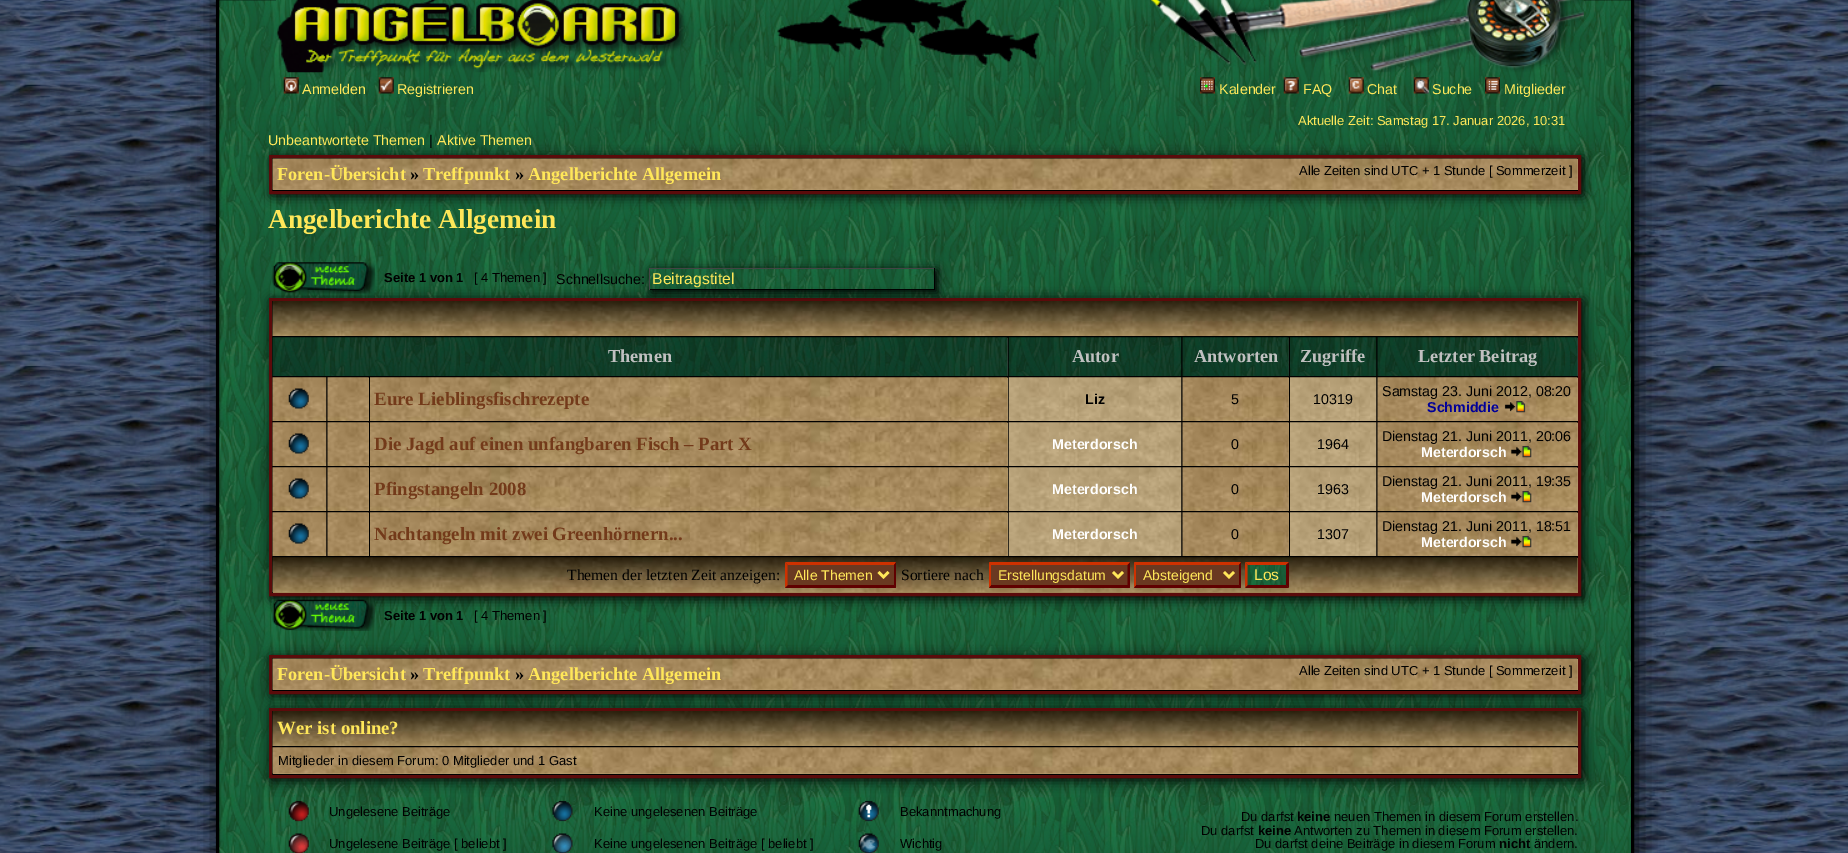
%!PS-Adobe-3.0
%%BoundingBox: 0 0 1848 853
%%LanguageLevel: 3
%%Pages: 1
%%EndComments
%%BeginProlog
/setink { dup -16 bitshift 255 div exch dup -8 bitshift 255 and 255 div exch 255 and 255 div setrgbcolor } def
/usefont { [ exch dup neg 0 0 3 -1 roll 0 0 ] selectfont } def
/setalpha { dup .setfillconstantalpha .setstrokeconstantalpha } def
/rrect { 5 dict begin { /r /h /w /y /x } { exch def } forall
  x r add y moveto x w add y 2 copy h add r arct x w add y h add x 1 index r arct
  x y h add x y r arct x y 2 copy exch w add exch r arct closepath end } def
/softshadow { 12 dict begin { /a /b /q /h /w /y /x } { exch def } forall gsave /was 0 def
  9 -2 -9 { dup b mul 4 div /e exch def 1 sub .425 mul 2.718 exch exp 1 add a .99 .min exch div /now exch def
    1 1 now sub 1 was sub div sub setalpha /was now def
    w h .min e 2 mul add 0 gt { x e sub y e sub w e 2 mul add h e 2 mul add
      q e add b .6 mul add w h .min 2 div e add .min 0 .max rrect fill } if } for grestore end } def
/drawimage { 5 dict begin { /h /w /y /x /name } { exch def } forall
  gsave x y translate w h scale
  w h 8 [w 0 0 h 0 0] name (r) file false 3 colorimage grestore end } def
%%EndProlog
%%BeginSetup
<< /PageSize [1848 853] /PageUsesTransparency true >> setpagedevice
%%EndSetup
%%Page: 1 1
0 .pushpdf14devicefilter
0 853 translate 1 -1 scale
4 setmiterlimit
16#FFFFFF setink
0 0 1848 853 rectfill
(img1.raw) 0 0 1848 853 drawimage
16#000000 setink
219 -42 1417 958 25 12.5 1 softshadow
(img2.raw) 219 0 1412 853 drawimage
3 setlinewidth
217.5 -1.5 1415 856 rectstroke
(img3.raw) 276 0 1308 73 drawimage
(img4.raw) 283 77 16 17 drawimage
/LiberationSans-Regular 14.25 usefont
16#FFE759 setink
302 94 moveto (Anmelden) show
(img5.raw) 378 77 16 17 drawimage
397 94 moveto (Registrieren) show
(img6.raw) 1200 77 15 17 drawimage
1219 94 moveto (Kalender) show
(img7.raw) 1283 77 16 17 drawimage
1303 94 moveto (FAQ) show
(img8.raw) 1348 77 16 17 drawimage
1367 94 moveto (Chat) show
(img9.raw) 1413 77 16 17 drawimage
1432 94 moveto (Suche) show
(img10.raw) 1485 77 15 17 drawimage
1504 94 moveto (Mitglieder) show
/LiberationSans-Regular 13 usefont
1298 125 moveto (Aktuelle Zeit: Samstag 17. Januar 2026, 10:31) show
16#000000 setink
271 158 1313 38 0 6 1 softshadow
/LiberationSans-Regular 14.25 usefont
16#FFE759 setink
268 145 moveto (Unbeantwortete Themen) show
16#000000 setink
429 145 moveto (|) show
16#FFE759 setink
437 145 moveto (Aktive Themen) show
16#000000 setink
270.5 156.5 moveto 1579.5 156.5 lineto 1579.5 192.5 lineto 270.5 192.5 lineto closepath gsave fill grestore
16#5B0B0B setink
stroke
16#BA9F70 setink
273 159 1305 31 rectfill
(img11.raw) 272 158 1306 32 drawimage
/LiberationSerif-Bold 18.25 usefont
16#FFE759 setink
277 180 moveto (Foren-Übersicht) show
16#000000 setink
410 180 moveto (») show
16#FFE759 setink
423 180 moveto (Treffpunkt) show
16#000000 setink
515 180 moveto (») show
16#FFE759 setink
528 180 moveto (Angelberichte Allgemein) show
/LiberationSans-Regular 13 usefont
16#000000 setink
1299 175 moveto (Alle Zeiten sind UTC + 1 Stunde [ Sommerzeit ]) show
/LiberationSerif-Bold 27.25 usefont
16#FFE759 setink
268 228 moveto (Angelberichte Allgemein) show
16#000000 setink
271 300 1313 299 0 6 1 softshadow
(img12.raw) 272 262 103 32 drawimage
/LiberationSans-Bold 13 usefont
384 282 moveto (Seite 1 von 1) show
/LiberationSans-Regular 13 usefont
474 282 moveto ([ 4 Themen ]) show
/LiberationSans-Regular 14.25 usefont
556 284 moveto (Schnellsuche:) show
270.5 299.5 moveto 1579.5 299.5 lineto 1579.5 594.5 lineto 270.5 594.5 lineto closepath gsave fill grestore
16#5B0B0B setink
stroke
16#9E8052 setink
1577 301 1 35 rectfill
(img13.raw) 272 301 1306 35 drawimage
gsave
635 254 moveto 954 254 lineto 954 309 lineto 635 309 lineto closepath 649 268 moveto 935 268 lineto 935 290 lineto 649 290 lineto closepath eoclip newpath
16#000000 setink
651 270 287 23 0 5 1 softshadow
grestore
[
    [649 268 286 1 16#444444]
    [934 268 1 22 16#000000]
    [649 289 286 1 16#000000]
    [649 268 1 22 16#444444]
] { aload pop setink rectfill } forall
/LiberationSans-Regular 15.75 usefont
16#FFE759 setink
652 284 moveto (Beitragstitel) show
16#424242 setink
1007 338 1 38 rectfill
(img14.raw) 272 337 736 39 drawimage
/LiberationSerif-Bold 18.25 usefont
16#C0C0C0 setink
608 362 moveto (Themen) show
(img15.raw) 1008 337 174 39 drawimage
1072 362 moveto (Autor) show
(img16.raw) 1182 337 107 39 drawimage
1194 362 moveto (Antworten) show
(img17.raw) 1290 337 87 39 drawimage
1300 362 moveto (Zugriffe) show
16#424242 setink
1577 338 1 38 rectfill
(img18.raw) 1377 337 201 39 drawimage
16#C0C0C0 setink
1418 362 moveto (Letzter Beitrag) show
(img19.raw) 272 377 55 44 drawimage
(img20.raw) 288 388 21 21 drawimage
(img21.raw) 327 377 42 44 drawimage
16#BA9F70 setink
1007 378 1 43 rectfill
(img22.raw) 370 377 638 44 drawimage
/LiberationSerif-Bold 18.85 usefont
16#733A1A setink
374 405 moveto (Eure Lieblingsfischrezepte) show
(img23.raw) 1008 377 174 44 drawimage
/LiberationSans-Bold 14.25 usefont
16#000000 setink
1085 404 moveto (Liz) show
(img24.raw) 1182 377 107 44 drawimage
/LiberationSans-Regular 14.25 usefont
1231 404 moveto (5) show
(img25.raw) 1290 377 87 44 drawimage
1313 404 moveto (10319) show
16#BA9F70 setink
1577 378 1 43 rectfill
(img26.raw) 1377 377 201 44 drawimage
16#000000 setink
1382 396 moveto (Samstag 23. Juni 2012, 08:20) show
/LiberationSans-Bold 14.25 usefont
16#000099 setink
1427 412 moveto (Schmiddie) show
(img27.raw) 1504 401 22 12 drawimage
(img19.raw) 272 422 55 44 drawimage
(img20.raw) 288 433 21 21 drawimage
(img21.raw) 327 422 42 44 drawimage
16#BA9F70 setink
1007 423 1 43 rectfill
(img28.raw) 370 422 638 44 drawimage
/LiberationSerif-Bold 18.85 usefont
16#733A1A setink
374 450 moveto (Die Jagd auf einen unfangbaren Fisch – Part X) show
(img23.raw) 1008 422 174 44 drawimage
/LiberationSans-Bold 14.25 usefont
16#FFFFFF setink
1052 449 moveto (Meterdorsch) show
(img24.raw) 1182 422 107 44 drawimage
/LiberationSans-Regular 14.25 usefont
16#000000 setink
1231 449 moveto (0) show
(img25.raw) 1290 422 87 44 drawimage
1317 449 moveto (1964) show
16#BA9F70 setink
1577 423 1 43 rectfill
(img26.raw) 1377 422 201 44 drawimage
16#000000 setink
1382 441 moveto (Dienstag 21. Juni 2011, 20:06) show
/LiberationSans-Bold 14.25 usefont
16#FFFFFF setink
1421 457 moveto (Meterdorsch) show
(img29.raw) 1511 446 21 12 drawimage
(img19.raw) 272 467 55 44 drawimage
(img20.raw) 288 478 21 21 drawimage
(img21.raw) 327 467 42 44 drawimage
16#BA9F70 setink
1007 468 1 43 rectfill
(img30.raw) 370 467 638 44 drawimage
/LiberationSerif-Bold 18.85 usefont
16#733A1A setink
374 495 moveto (Pfingstangeln 2008) show
(img23.raw) 1008 467 174 44 drawimage
/LiberationSans-Bold 14.25 usefont
16#FFFFFF setink
1052 494 moveto (Meterdorsch) show
(img24.raw) 1182 467 107 44 drawimage
/LiberationSans-Regular 14.25 usefont
16#000000 setink
1231 494 moveto (0) show
(img25.raw) 1290 467 87 44 drawimage
1317 494 moveto (1963) show
16#BA9F70 setink
1577 468 1 43 rectfill
(img26.raw) 1377 467 201 44 drawimage
16#000000 setink
1382 486 moveto (Dienstag 21. Juni 2011, 19:35) show
/LiberationSans-Bold 14.25 usefont
16#FFFFFF setink
1421 502 moveto (Meterdorsch) show
(img29.raw) 1511 491 21 12 drawimage
(img31.raw) 272 512 55 44 drawimage
(img32.raw) 288 523 21 21 drawimage
(img33.raw) 327 512 42 44 drawimage
16#BA9F70 setink
1007 513 1 43 rectfill
(img34.raw) 370 512 638 44 drawimage
/LiberationSerif-Bold 18.85 usefont
16#733A1A setink
374 540 moveto (Nachtangeln mit zwei Greenhörnern...) show
(img35.raw) 1008 512 174 44 drawimage
/LiberationSans-Bold 14.25 usefont
16#FFFFFF setink
1052 539 moveto (Meterdorsch) show
(img36.raw) 1182 512 107 44 drawimage
/LiberationSans-Regular 14.25 usefont
16#000000 setink
1231 539 moveto (0) show
(img37.raw) 1290 512 87 44 drawimage
1317 539 moveto (1307) show
16#BA9F70 setink
1577 513 1 43 rectfill
(img38.raw) 1377 512 201 44 drawimage
16#000000 setink
1382 531 moveto (Dienstag 21. Juni 2011, 18:51) show
/LiberationSans-Bold 14.25 usefont
16#FFFFFF setink
1421 547 moveto (Meterdorsch) show
(img39.raw) 1511 536 21 12 drawimage
16#9E8052 setink
273 558 1305 35 rectfill
(img40.raw) 272 557 1306 36 drawimage
/LiberationSerif-Regular 15.6 usefont
16#000000 setink
567 580 moveto (Themen der letzten Zeit anzeigen:) show
16#6A3921 setink
785 563 111 25 rectfill
16#CE3100 setink
785 562 moveto 896 562 lineto 894 565 lineto 788 565 lineto closepath fill
16#600000 setink
896 562.5 moveto 896 587.5 lineto 894 585 lineto 894 565 lineto closepath fill
896 588 moveto 785 588 lineto 788 585 lineto 894 585 lineto closepath fill
16#CE3100 setink
785 587.5 moveto 785 562.5 lineto 787.5 565 lineto 787.5 585 lineto closepath fill
16#FFE759 setink
2.5 setlinewidth
878.5 572 moveto 883.5 577 lineto 888.5 572 lineto stroke
/LiberationSans-Regular 14 usefont
794 580 moveto (Alle Themen) show
/LiberationSerif-Regular 15.6 usefont
16#000000 setink
901 580 moveto (Sortiere nach) show
16#6A3921 setink
989 563 141 25 rectfill
16#CE3100 setink
989 562 moveto 1130 562 lineto 1128 565 lineto 991 565 lineto closepath fill
16#600000 setink
1130 562.5 moveto 1130 587.5 lineto 1127.5 585 lineto 1127.5 565 lineto closepath fill
1130 588 moveto 989 588 lineto 991 585 lineto 1128 585 lineto closepath fill
16#CE3100 setink
989 587.5 moveto 989 562.5 lineto 991 565 lineto 991 585 lineto closepath fill
16#FFE759 setink
1113 572 moveto 1118 577 lineto 1123 572 lineto stroke
/LiberationSans-Regular 14 usefont
998 580 moveto (Erstellungsdatum) show
16#6A3921 setink
1134 563 107 25 rectfill
16#CE3100 setink
1134 562 moveto 1241 562 lineto 1239 565 lineto 1136 565 lineto closepath fill
16#600000 setink
1241 562.5 moveto 1241 587.5 lineto 1239 585 lineto 1239 565 lineto closepath fill
1241 588 moveto 1134 588 lineto 1136 585 lineto 1239 585 lineto closepath fill
16#CE3100 setink
1134 587.5 moveto 1134 562.5 lineto 1136 565 lineto 1136 585 lineto closepath fill
16#FFE759 setink
1224 572 moveto 1229 577 lineto 1234 572 lineto stroke
1143 580 moveto (Absteigend) show
16#9E8052 setink
1245 563 44 25 rectfill
(img41.raw) 1245 562 44 26 drawimage
16#CE3100 setink
1245 562 moveto 1289 562 lineto 1286 565 lineto 1248 565 lineto closepath fill
16#600000 setink
1289 562.5 moveto 1289 587.5 lineto 1286 585 lineto 1286 565 lineto closepath fill
1289 588 moveto 1245 588 lineto 1248 585 lineto 1286 585 lineto closepath fill
16#CE3100 setink
1245 587.5 moveto 1245 562.5 lineto 1247.5 565 lineto 1247.5 585 lineto closepath fill
/LiberationSans-Regular 15.6 usefont
16#FFE759 setink
1254 580 moveto (Los) show
(img42.raw) 272 599 103 32 drawimage
/LiberationSans-Bold 13 usefont
16#000000 setink
384 620 moveto (Seite 1 von 1) show
/LiberationSans-Regular 13 usefont
474 620 moveto ([ 4 Themen ]) show
271 658 1313 38 0 6 1 softshadow
270.5 656.5 moveto 1579.5 656.5 lineto 1579.5 692.5 lineto 270.5 692.5 lineto closepath gsave fill grestore
16#5B0B0B setink
3 setlinewidth
stroke
16#BA9F70 setink
273 659 1305 31 rectfill
(img43.raw) 272 658 1306 32 drawimage
/LiberationSerif-Bold 18.25 usefont
16#FFE759 setink
277 680 moveto (Foren-Übersicht) show
16#000000 setink
410 680 moveto (») show
16#FFE759 setink
423 680 moveto (Treffpunkt) show
16#000000 setink
515 680 moveto (») show
16#FFE759 setink
528 680 moveto (Angelberichte Allgemein) show
/LiberationSans-Regular 13 usefont
16#000000 setink
1299 675 moveto (Alle Zeiten sind UTC + 1 Stunde [ Sommerzeit ]) show
271 710 1313 70 0 6 1 softshadow
270.5 709.5 moveto 1579.5 709.5 lineto 1579.5 776.5 lineto 270.5 776.5 lineto closepath gsave fill grestore
16#5B0B0B setink
stroke
16#9E8052 setink
1577 711 1 35 rectfill
(img44.raw) 272 711 1306 35 drawimage
/LiberationSerif-Bold 18.75 usefont
16#FFE759 setink
277 734 moveto (Wer ist online?) show
16#BA9F70 setink
273 748 1305 26 rectfill
(img45.raw) 272 747 1306 27 drawimage
/LiberationSans-Regular 13 usefont
16#000000 setink
278 765 moveto (Mitglieder in diesem Forum: 0 Mitglieder und 1 Gast) show
(img46.raw) 288 800 21 22 drawimage
329 816 moveto (Ungelesene Beiträge) show
(img47.raw) 552 800 21 22 drawimage
594 816 moveto (Keine ungelesenen Beiträge) show
(img48.raw) 858 800 21 22 drawimage
900 816 moveto (Bekanntmachung) show
(img49.raw) 288 833 21 20 drawimage
329 848 moveto (Ungelesene Beiträge [ beliebt ]) show
(img50.raw) 552 833 21 20 drawimage
594 848 moveto (Keine ungelesenen Beiträge [ beliebt ]) show
(img51.raw) 858 833 21 20 drawimage
900 848 moveto (Wichtig) show
1241 821 moveto (Du darfst) show
/LiberationSans-Bold 13 usefont
1297 821 moveto (keine) show
/LiberationSans-Regular 13 usefont
1334 821 moveto (neuen Themen in diesem Forum erstellen.) show
1201 835 moveto (Du darfst) show
/LiberationSans-Bold 13 usefont
1258 835 moveto (keine) show
/LiberationSans-Regular 13 usefont
1294 835 moveto (Antworten zu Themen in diesem Forum erstellen.) show
1255 848 moveto (Du darfst deine Beiträge in diesem Forum) show
/LiberationSans-Bold 13 usefont
1499 848 moveto (nicht) show
/LiberationSans-Regular 13 usefont
1534 848 moveto (ändern.) show
.poppdf14devicefilter showpage
%%EOF
